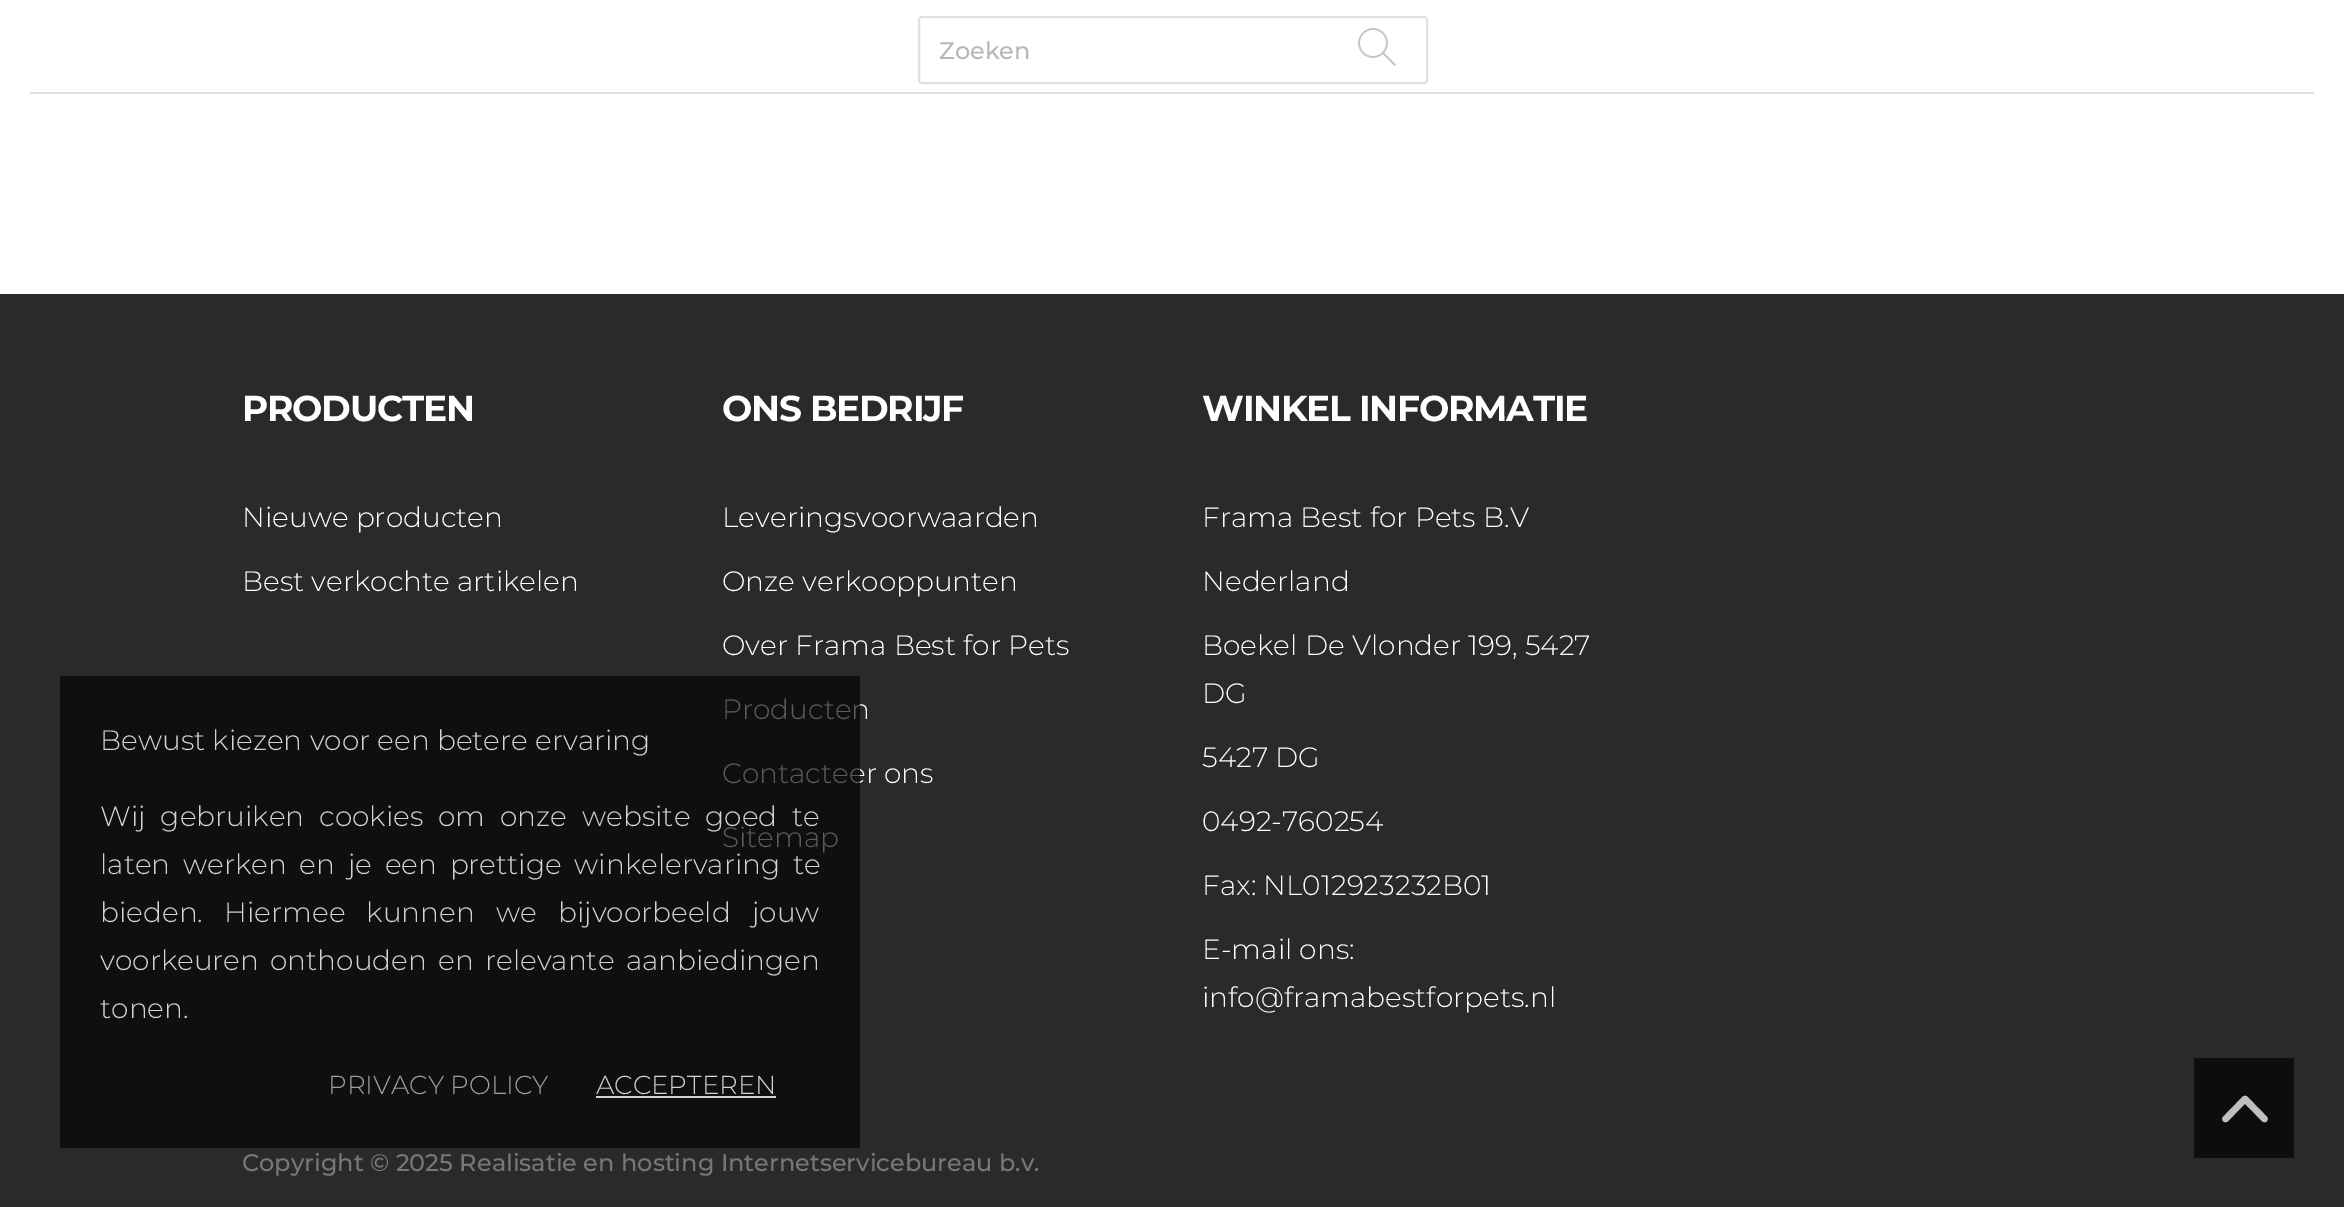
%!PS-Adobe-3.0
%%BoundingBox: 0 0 2344 1207
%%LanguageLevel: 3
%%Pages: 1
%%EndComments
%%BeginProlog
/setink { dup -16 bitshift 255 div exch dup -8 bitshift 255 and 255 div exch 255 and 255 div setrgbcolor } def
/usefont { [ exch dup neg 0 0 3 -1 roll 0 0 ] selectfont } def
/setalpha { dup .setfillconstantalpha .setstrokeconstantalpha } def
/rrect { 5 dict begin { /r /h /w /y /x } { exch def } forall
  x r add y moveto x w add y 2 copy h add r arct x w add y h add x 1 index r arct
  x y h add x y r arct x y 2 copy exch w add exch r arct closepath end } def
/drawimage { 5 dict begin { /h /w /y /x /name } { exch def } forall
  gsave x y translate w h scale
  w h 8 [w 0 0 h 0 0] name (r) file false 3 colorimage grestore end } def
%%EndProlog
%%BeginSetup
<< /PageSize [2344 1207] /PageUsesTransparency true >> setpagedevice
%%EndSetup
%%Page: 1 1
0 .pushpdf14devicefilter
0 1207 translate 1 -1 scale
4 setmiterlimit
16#FFFFFF setink
0 0 2344 1207 rectfill
16#E0E0E0 setink
30 92 2284 2 rectfill
2 setlinewidth
919 17 508 66 3 rrect stroke
/Montserrat-Medium 24 usefont
16#B7B7B7 setink
939 59 moveto (Zoeken) show
(img1.raw) 1358 28 38 38 drawimage
16#2A2A2A setink
0 294 2344 913 rectfill
/Montserrat-Bold 36 usefont
16#FFFFFF setink
242 421 moveto -1.25 0 (PRODUCTEN) ashow
/Montserrat-Light 28 usefont
242 527 moveto (Nieuwe producten) show
242 591 moveto (Best verkochte artikelen) show
/Montserrat-Bold 36 usefont
722 421 moveto -1.25 0 (ONS BEDRIJF) ashow
/Montserrat-Light 28 usefont
[
    [(Leveringsvoorwaarden) 722 527]
    [(Onze verkooppunten) 722 591]
    [(Over Frama Best for Pets) 722 655]
    [(Producten) 722 719]
    [(Contacteer ons) 722 783]
    [(Sitemap) 722 847]
] { aload pop moveto show } forall
/Montserrat-Bold 36 usefont
1202 421 moveto -1.25 0 (WINKEL INFORMATIE) ashow
/Montserrat-Light 28 usefont
[
    [(Frama Best for Pets B.V) 1202 527]
    [(Nederland) 1202 591]
    [(Boekel De Vlonder 199, 5427) 1202 655]
    [(DG) 1202 703]
    [(5427 DG) 1202 767]
    [(0492-760254) 1202 831]
    [(Fax: NL012923232B01) 1202 895]
    [(E-mail ons:) 1202 959]
    [(info@framabestforpets.nl) 1202 1007]
] { aload pop moveto show } forall
16#0D0D0D setink
2194 1058 100 100 rectfill
16#BFBFBF setink
6.6 setlinewidth
1 setlinecap
1 setlinejoin
2225.5 1119 moveto 2245 1099 lineto 2264.5 1119 lineto stroke
/Montserrat-Medium 24 usefont
16#777777 setink
242 1171 moveto (Copyright © 2025 Realisatie en hosting Internetservicebureau b.v.) show
0.64 setalpha
16#000000 setink
60 676 800 472 rectfill
/Montserrat-Light 28 usefont
1 setalpha
16#D4D4D4 setink
100 750 moveto (Bewust kiezen voor een betere ervaring) show
100 826 moveto 7.75 0 32 (Wij gebruiken cookies om onze website goed te) widthshow
100 874 moveto 5.5 0 32 (laten werken en je een prettige winkelervaring te) widthshow
100 922 moveto 14 0 32 (bieden. Hiermee kunnen we bijvoorbeeld jouw) widthshow
100 970 moveto 4 0 32 (voorkeuren onthouden en relevante aanbiedingen) widthshow
100 1018 moveto (tonen.) show
/Montserrat-Light 26 usefont
16#A0A0A0 setink
328 1094 moveto (PRIVACY POLICY) show
16#D4D4D4 setink
596 1094 moveto (ACCEPTEREN) show
596 1096 180 2 rectfill
.poppdf14devicefilter showpage
%%EOF
